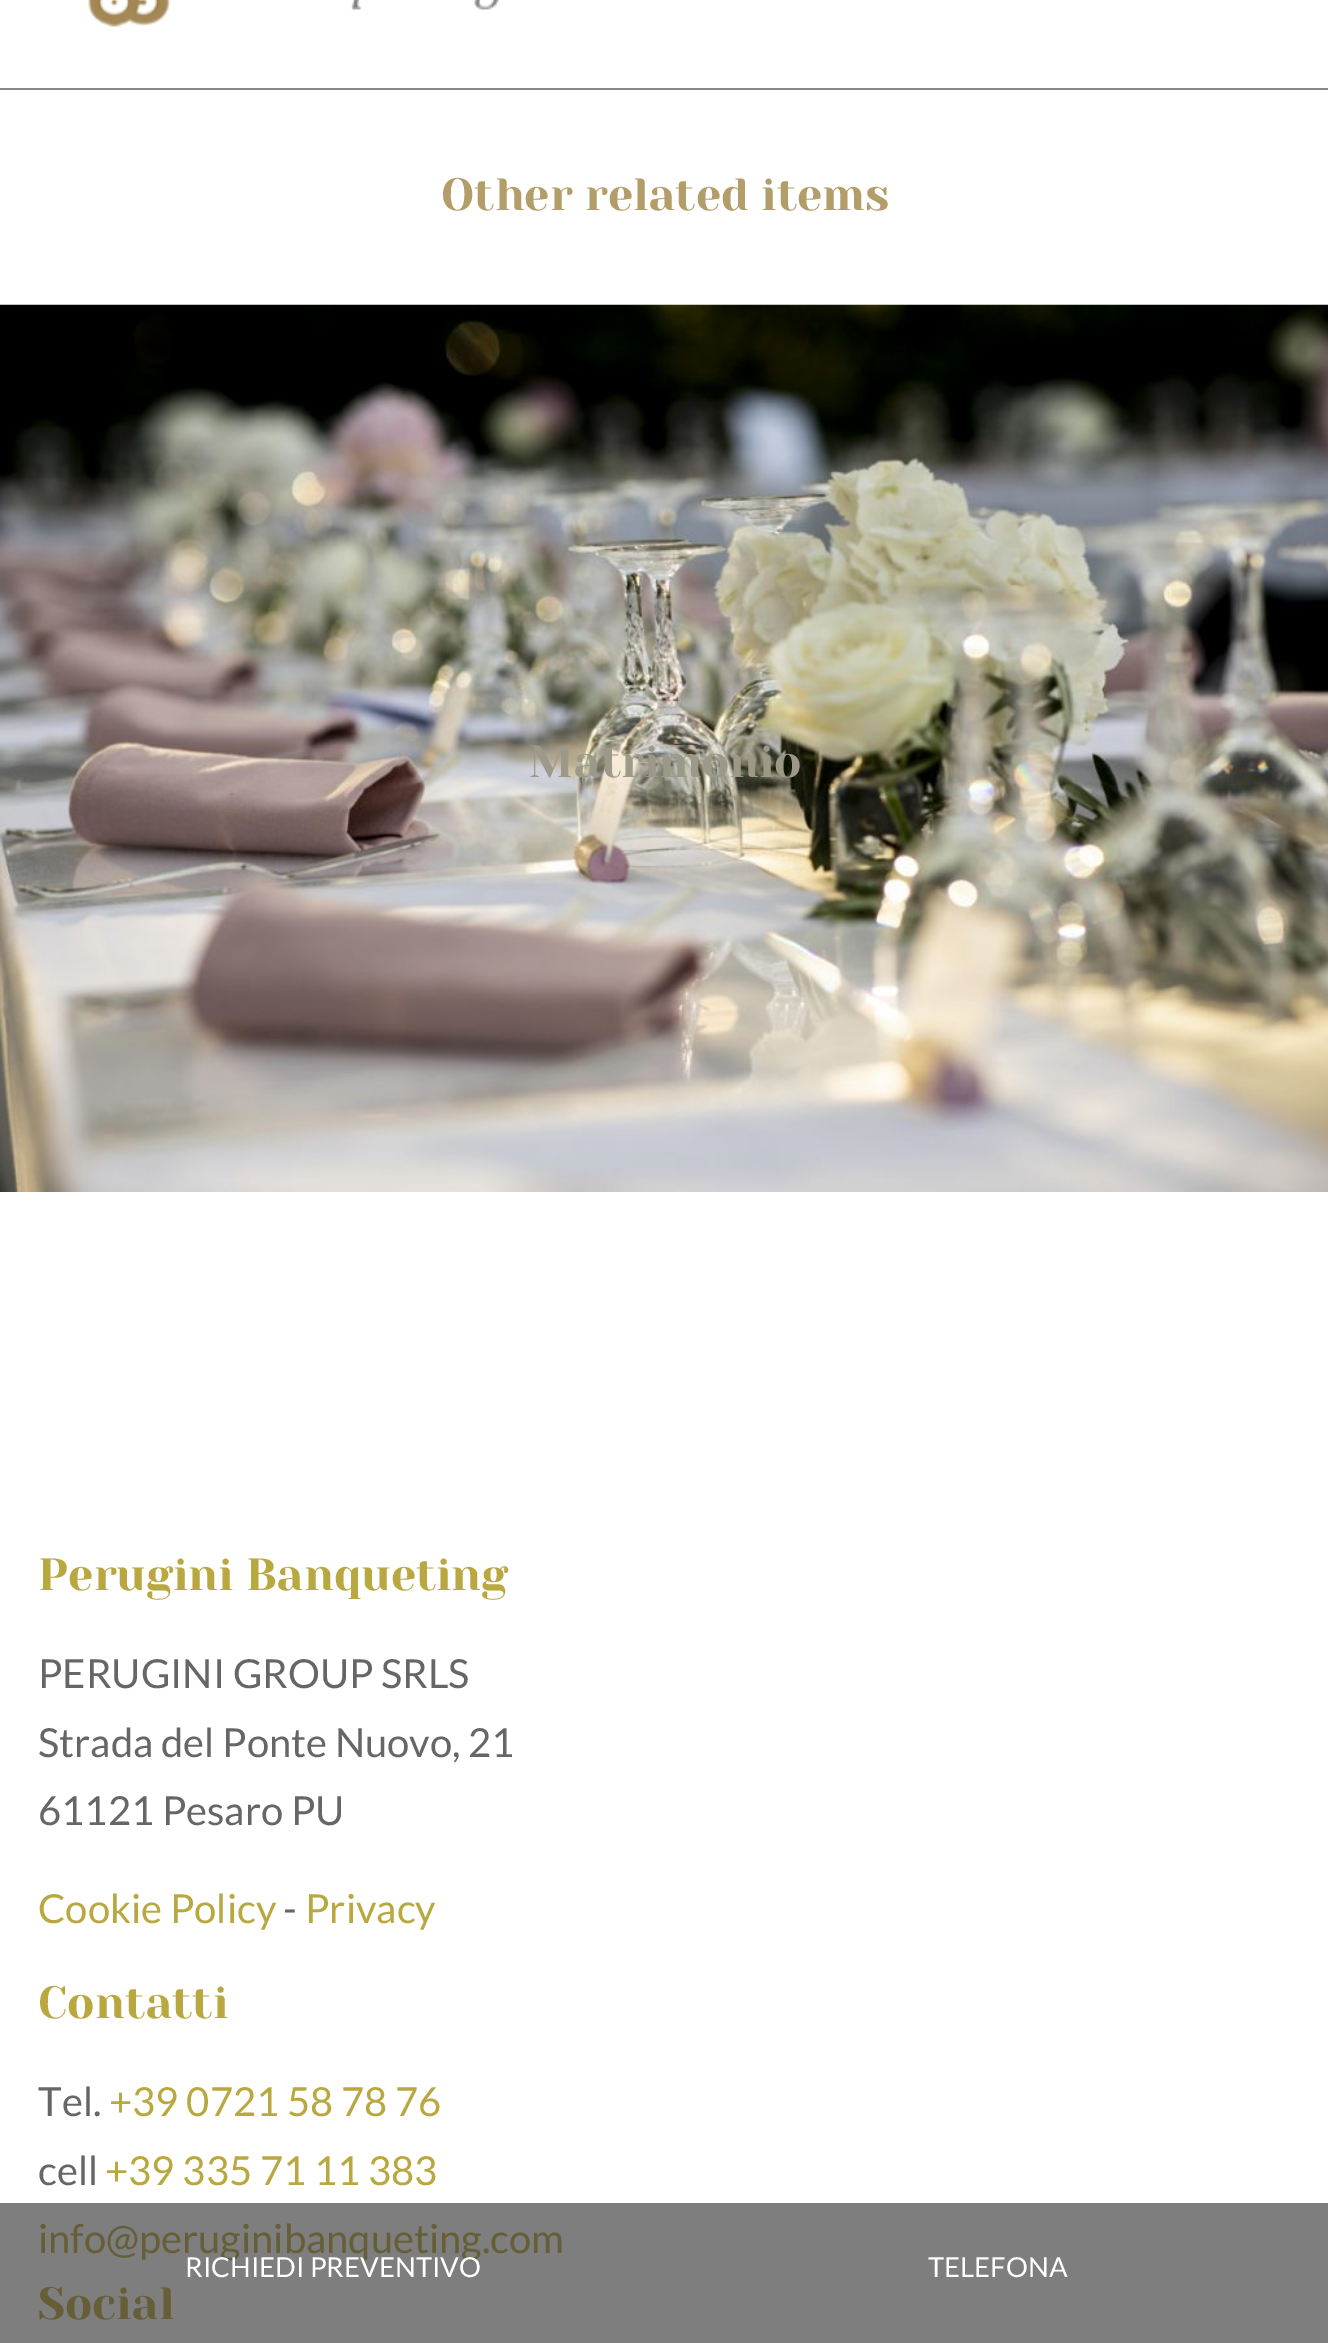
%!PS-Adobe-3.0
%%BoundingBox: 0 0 1328 2343
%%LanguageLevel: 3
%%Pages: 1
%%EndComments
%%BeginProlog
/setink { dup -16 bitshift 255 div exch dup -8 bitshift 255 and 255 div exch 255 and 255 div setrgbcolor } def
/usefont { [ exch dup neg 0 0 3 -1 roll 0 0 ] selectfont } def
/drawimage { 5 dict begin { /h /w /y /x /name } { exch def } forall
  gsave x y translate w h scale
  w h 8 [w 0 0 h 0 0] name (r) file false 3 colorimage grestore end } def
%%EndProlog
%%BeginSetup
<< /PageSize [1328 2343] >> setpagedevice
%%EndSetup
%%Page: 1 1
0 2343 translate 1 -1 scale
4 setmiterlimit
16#FFFFFF setink
0 0 1328 2343 rectfill
16#7E7E7E setink
0 2203 1328 140 rectfill
16#868787 setink
0 88 1328 2 rectfill
(img1.raw) 88 0 411 27 drawimage
/YesevaOne-Regular 45 usefont
16#B39E69 setink
441 210 moveto (Other related items) show
(img2.raw) 0 304 1328 888 drawimage
16#9C9989 setink
529 777 moveto (Matrimonio) show
16#B9A73F setink
38 1590 moveto (Perugini Banqueting) show
/Lato-Regular 40 usefont
16#666666 setink
[
    [(PERUGINI GROUP SRLS) 38 1688]
    [(Strada del Ponte Nuovo, 21) 38 1757]
    [(61121 Pesaro PU) 38 1825]
] { aload pop moveto show } forall
16#B9A73F setink
38 1923 moveto (Cookie Policy) show
16#666666 setink
283 1923 moveto (-) show
16#B9A73F setink
305 1923 moveto (Privacy) show
/YesevaOne-Regular 45 usefont
38 2018 moveto (Contatti) show
/Lato-Regular 40 usefont
16#666666 setink
38 2116 moveto (Tel.) show
16#B9A73F setink
109 2116 moveto (+39 0721 58 78 76) show
16#666666 setink
38 2185 moveto (cell) show
16#B9A73F setink
105 2185 moveto (+39 335 71 11 383) show
16#655E37 setink
38 2253 moveto (info@peruginibanqueting.com) show
/YesevaOne-Regular 45 usefont
38 2319 moveto (Social) show
/Lato-Regular 27.5 usefont
16#FFFFFF setink
185 2277 moveto (RICHIEDI PREVENTIVO) show
928 2277 moveto (TELEFONA) show
showpage
%%EOF
